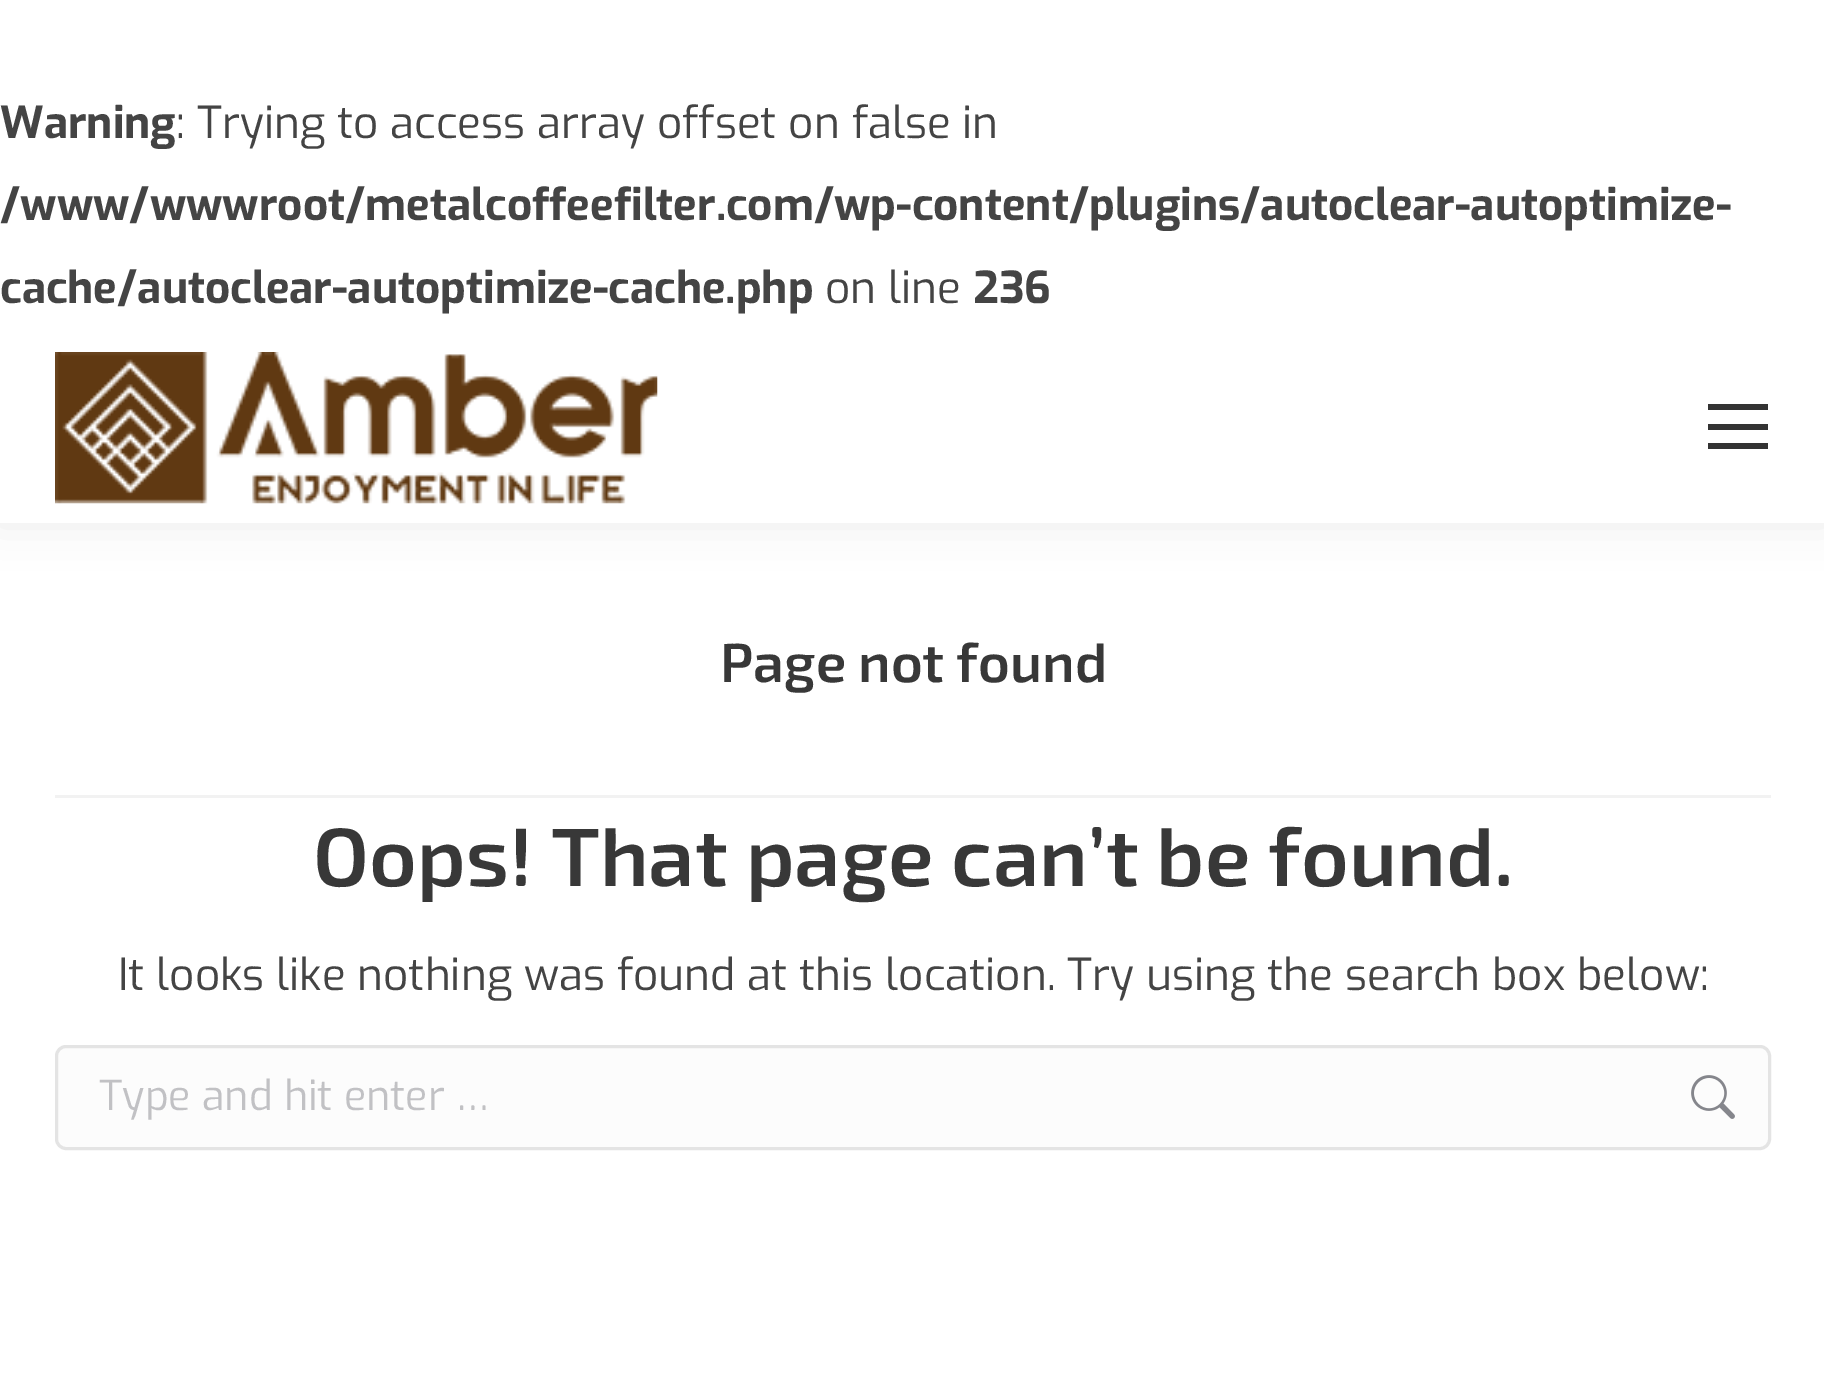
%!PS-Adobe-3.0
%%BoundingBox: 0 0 1824 1395
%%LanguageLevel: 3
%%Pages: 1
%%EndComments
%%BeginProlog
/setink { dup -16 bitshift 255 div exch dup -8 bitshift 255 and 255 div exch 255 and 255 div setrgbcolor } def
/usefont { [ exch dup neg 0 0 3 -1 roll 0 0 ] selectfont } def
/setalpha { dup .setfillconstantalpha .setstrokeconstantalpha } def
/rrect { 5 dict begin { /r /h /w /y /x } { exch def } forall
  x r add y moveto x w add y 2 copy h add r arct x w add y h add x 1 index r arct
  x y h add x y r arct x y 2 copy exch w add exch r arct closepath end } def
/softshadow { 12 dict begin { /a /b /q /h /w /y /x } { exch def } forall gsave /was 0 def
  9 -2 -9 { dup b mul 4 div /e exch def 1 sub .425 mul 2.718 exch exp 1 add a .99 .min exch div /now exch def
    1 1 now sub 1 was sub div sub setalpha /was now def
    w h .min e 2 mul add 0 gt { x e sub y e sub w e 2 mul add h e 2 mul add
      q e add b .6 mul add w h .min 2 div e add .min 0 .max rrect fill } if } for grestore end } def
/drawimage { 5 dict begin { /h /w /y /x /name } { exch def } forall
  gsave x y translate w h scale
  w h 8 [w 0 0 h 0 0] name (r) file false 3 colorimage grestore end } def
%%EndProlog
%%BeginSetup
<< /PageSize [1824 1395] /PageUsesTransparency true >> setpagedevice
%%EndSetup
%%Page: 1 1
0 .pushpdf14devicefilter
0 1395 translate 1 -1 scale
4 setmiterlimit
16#FFFFFF setink
0 0 1824 1395 rectfill
/Exo-Bold 44 usefont
16#444444 setink
0 138 moveto (Warning) show
/Exo-Regular 44 usefont
176 138 moveto (: Trying to access array offset on false in) show
/Exo-Bold 44 usefont
0 220 moveto (/www/wwwroot/metalcoffeefilter.com/wp-content/plugins/autoclear-autoptimize-) show
0 303 moveto (cache/autoclear-autoptimize-cache.php) show
/Exo-Regular 44 usefont
825 303 moveto (on line) show
/Exo-Bold 44 usefont
973 303 moveto (236) show
gsave
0 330 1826 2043 rectclip
16#000000 setink
-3 327 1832 198 0 20.5 0.07 softshadow
grestore
16#FFFFFF setink
0 330 1824 193 rectfill
(img1.raw) 55 352 603 152 drawimage
[
    [1708 404 60 6 16#333333]
    [1708 424 60 6 16#333333]
    [1708 443 60 6 16#333333]
] { aload pop setink rectfill } forall
/Exo2-SemiBold 55 usefont
16#383838 setink
720 682 moveto (Page not found) show
16#F2F2F2 setink
55 795 1716 3 rectfill
/Exo2-SemiBold 82.5 usefont
16#383838 setink
313 886 moveto (Oops! That page can’t be found.) show
/Exo-Regular 44 usefont
16#444444 setink
118 990 moveto (It looks like nothing was found at this location. Try using the search box below:) show
16#FCFCFC setink
56.5 1046.5 1713 102 9.5 rrect gsave fill grestore
16#E4E4E4 setink
3 setlinewidth
stroke
/Exo-Regular 41.25 usefont
16#C1C1C4 setink
99 1110 moveto (Type and hit enter …) show
(img2.raw) 1691 1075 44 44 drawimage
.poppdf14devicefilter showpage
%%EOF
